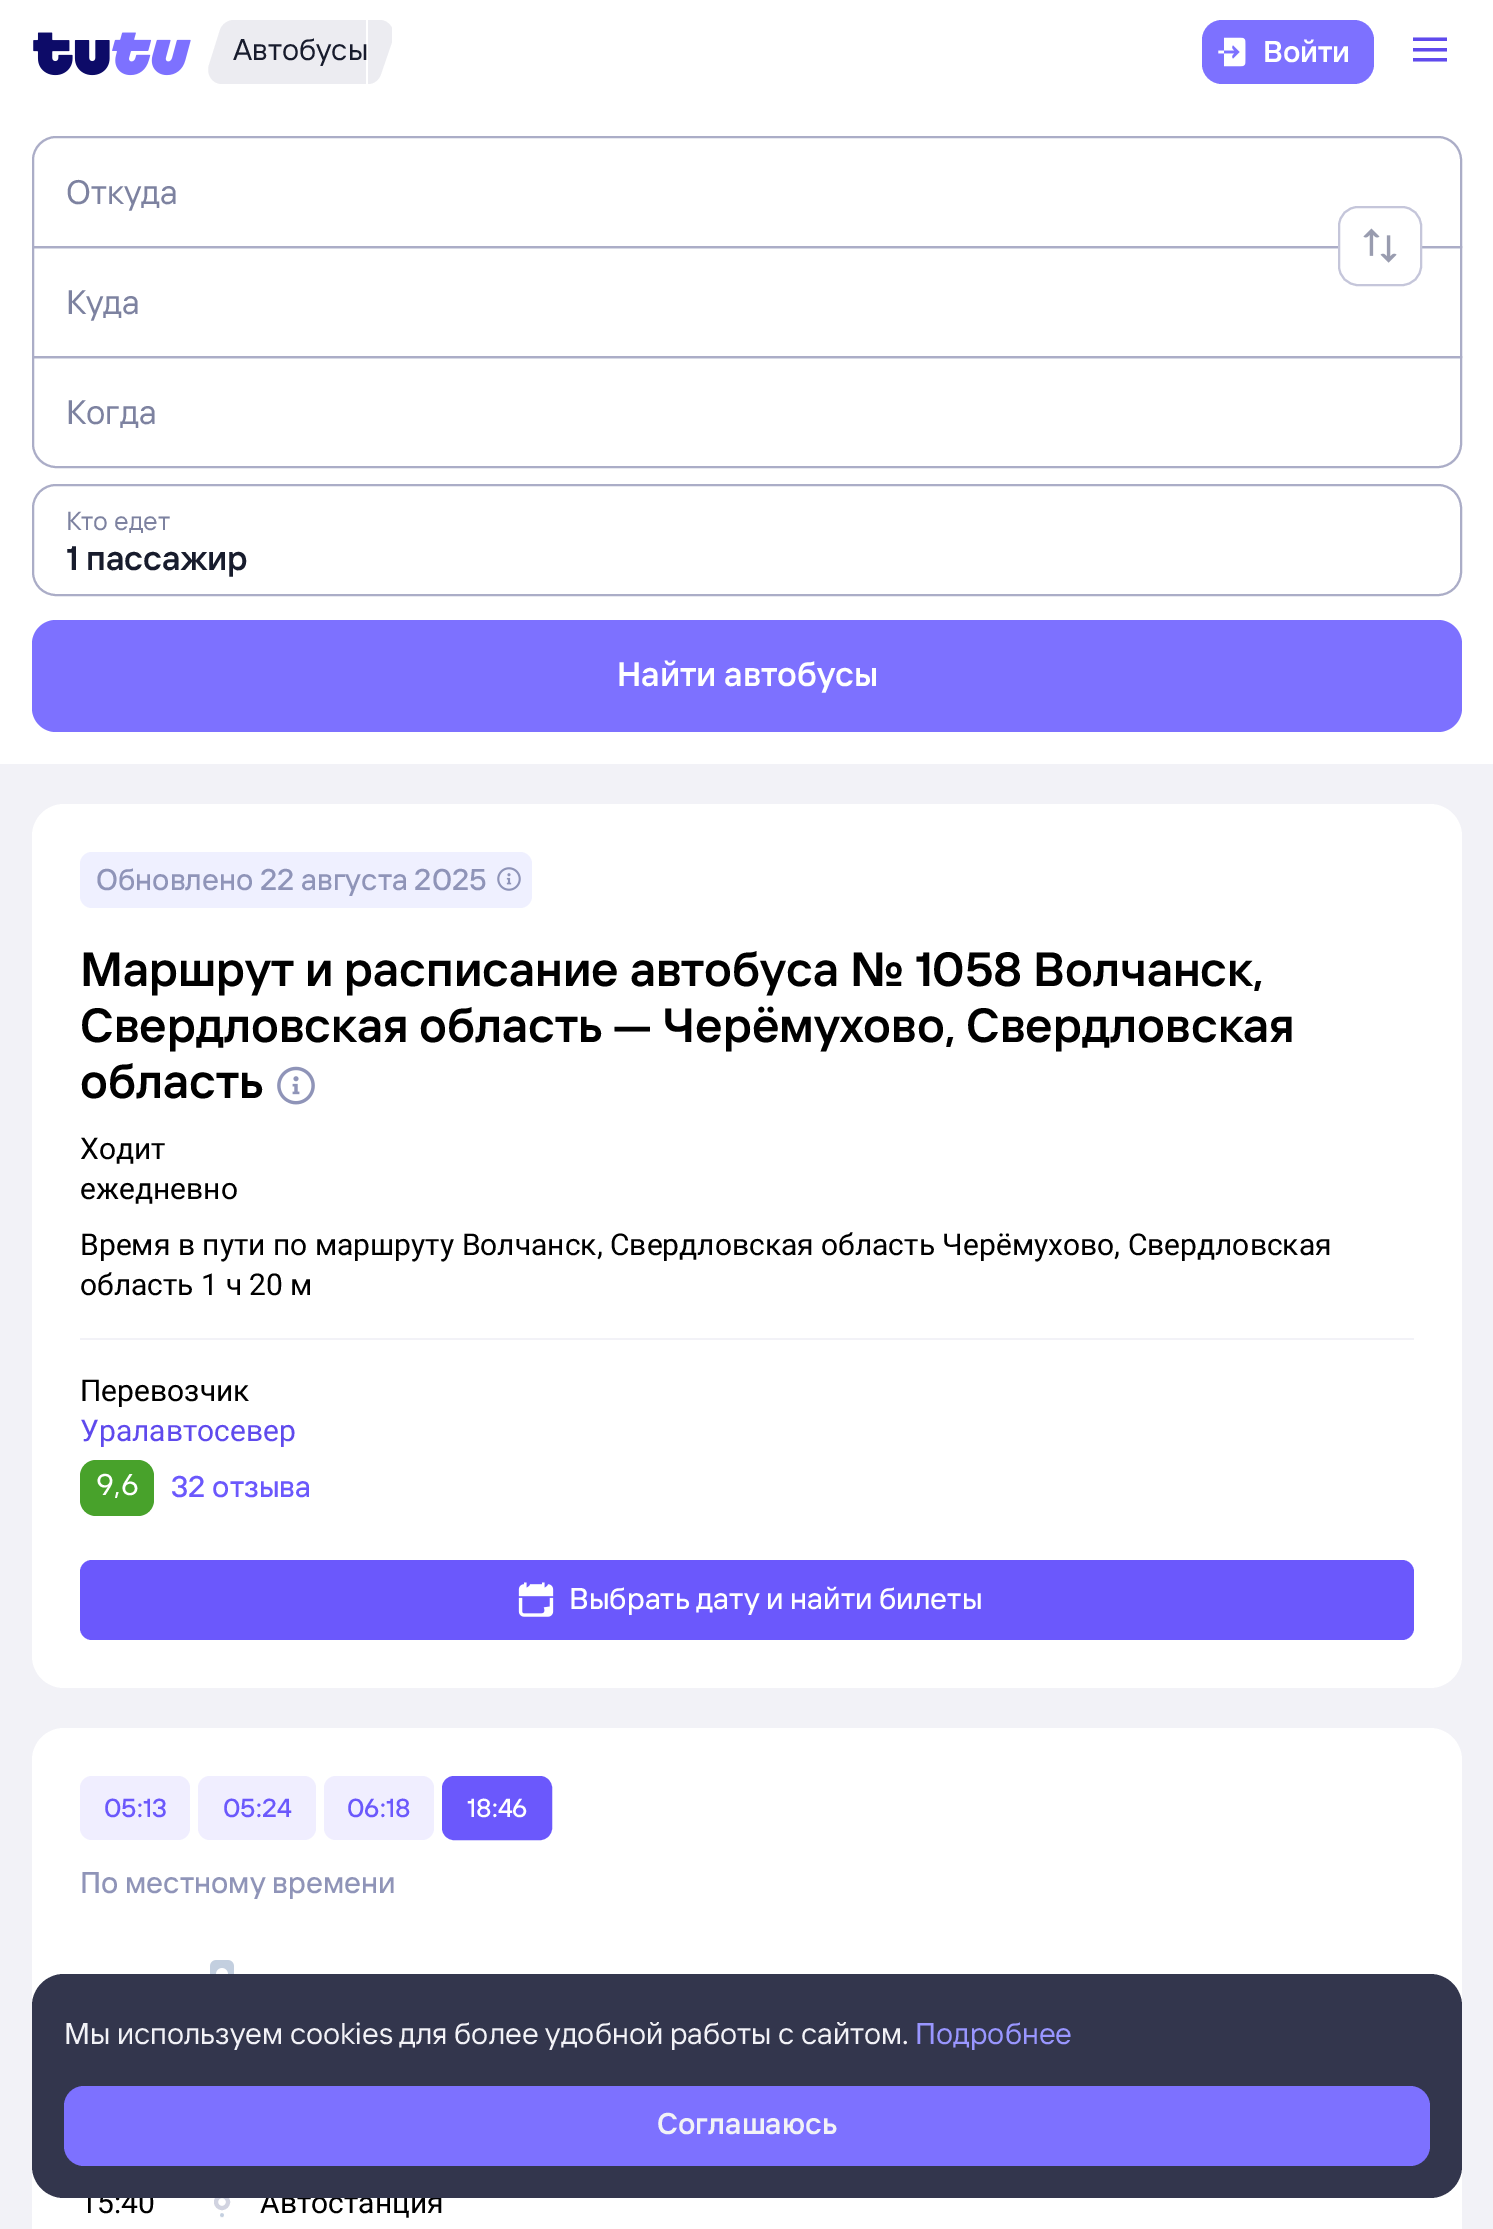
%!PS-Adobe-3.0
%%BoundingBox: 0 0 1493 2229
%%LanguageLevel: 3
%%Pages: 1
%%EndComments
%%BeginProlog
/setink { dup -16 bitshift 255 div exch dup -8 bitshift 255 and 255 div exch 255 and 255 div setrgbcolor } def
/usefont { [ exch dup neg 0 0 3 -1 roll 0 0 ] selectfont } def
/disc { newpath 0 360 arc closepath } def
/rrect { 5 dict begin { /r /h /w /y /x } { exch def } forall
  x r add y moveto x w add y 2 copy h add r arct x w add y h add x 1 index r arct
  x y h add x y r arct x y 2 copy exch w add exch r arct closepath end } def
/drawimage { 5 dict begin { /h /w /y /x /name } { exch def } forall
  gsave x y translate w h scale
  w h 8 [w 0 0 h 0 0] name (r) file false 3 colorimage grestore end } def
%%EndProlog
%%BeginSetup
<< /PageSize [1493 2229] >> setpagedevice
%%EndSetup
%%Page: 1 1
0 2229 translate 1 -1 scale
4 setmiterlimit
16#FFFFFF setink
0 0 1493 2229 rectfill
(img1.raw) 33 32 158 44 drawimage
16#ECECF1 setink
234 84 moveto 222 84 lineto 212 84 206 74 209 65 curveto 220 30 lineto 222 24 228 20 234 20 curveto closepath fill
234 20 132 64 rectfill
/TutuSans-Regular 30 usefont
16#181C2D setink
233 60 moveto (Автобусы) show
gsave
366 20 26 64 rectclip
16#ECECF1 setink
368 20 moveto 380 20 lineto 389 20 396 30 393 39 curveto 381 74 lineto 379 80 374 84 368 84 curveto closepath fill
grestore
16#7D71FF setink
1202 20 172 64 20 rrect fill
(img2.raw) 1218 37 28 30 drawimage
/TutuSans-SemiBold 30 usefont
16#FFFFFF setink
1263 62 moveto (Войти) show
16#5F4AED setink
1413 37.5 moveto 1447 37.5 lineto 1447 41 lineto 1413 41 lineto closepath 1413 48 moveto 1447 48 lineto 1447 51.5 lineto 1413 51.5 lineto closepath 1447 58 moveto 1413 58 lineto 1413 61.5 lineto 1447 61.5 lineto closepath fill
16#ABADC7 setink
2 setlinewidth
56 137 moveto 1438 137 lineto 1450.5 137 1461 147.5 1461 160 curveto 1461 247 lineto 33 247 lineto 33 160 lineto 33 147.5 43.5 137 56 137 curveto closepath stroke
/TutuSans-Regular 34 usefont
16#7D82A0 setink
66 204 moveto (Откуда) show
16#ABADC7 setink
33 357 moveto 1461 357 lineto 1461 444 lineto 1461 456.5 1450.5 467 1438 467 curveto 56 467 lineto 43.5 467 33 456.5 33 444 curveto closepath stroke
33 247 1428 110 rectstroke
16#FFFFFF setink
1339 207 82 78 19 rrect gsave fill grestore
16#C5C6DA setink
stroke
(img3.raw) 1363 228 34 35 drawimage
16#7D82A0 setink
66 314 moveto (Куда) show
66 424 moveto (Когда) show
16#ABADC7 setink
33 485 1428 110 23 rrect stroke
/TutuSans-Regular 26 usefont
16#7D82A0 setink
66 530 moveto (Кто едет) show
/TutuSans-SemiBold 34 usefont
16#181C2D setink
66 570 moveto (1 пассажир) show
16#7D71FF setink
32 620 1430 112 24 rrect fill
16#FFFFFF setink
617 686 moveto (Найти автобусы) show
16#F2F2F7 setink
0 764 1493 1465 rectfill
16#FFFFFF setink
32 804 1430 884 32 rrect fill
16#EFF0FF setink
80 852 452 56 12 rrect fill
/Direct-Medium 30 usefont
16#8F94B8 setink
96 890 moveto (Обновлено 22 августа 2025) show
(img4.raw) 497 867 24 24 drawimage
/TutuSans-SemiBold 48 usefont
16#000000 setink
[
    [(Маршрут и расписание автобуса № 1058 Волчанск,) 80 986]
    [(Свердловская область — Черёмухово, Свердловская) 80 1042]
    [(область) 80 1098]
] { aload pop moveto show } forall
(img5.raw) 277 1066 38 39 drawimage
/Roboto-Regular 30 usefont
[
    [(Ходит) 80 1159]
    [(ежедневно) 80 1199]
    [(Время в пути по маршруту Волчанск, Свердловская область Черёмухово, Свердловская) 80 1255]
    [(область 1 ч 20 м) 80 1295]
] { aload pop moveto show } forall
16#F2F2F7 setink
80 1338 1334 2 rectfill
16#000000 setink
80 1401 moveto (Перевозчик) show
16#5F4AED setink
80 1441 moveto (Уралавтосевер) show
16#48A22B setink
80 1460 74 56 16 rrect fill
/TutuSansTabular-Regular 30 usefont
16#FFFFFF setink
96 1495 moveto (9,6) show
/Direct-Medium 30 usefont
16#6B58FC setink
171 1497 moveto (32 отзыва) show
80 1560 1334 80 12 rrect fill
(img6.raw) 518 1582 36 35 drawimage
16#FFFFFF setink
569 1609 moveto (Выбрать дату и найти билеты) show
32 1728 1430 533 32 rrect fill
16#F0EEFF setink
80 1776 110 64 12 rrect fill
/Direct-Medium 26 usefont
16#6B58FC setink
104 1817 moveto (05:13) show
16#F0EEFF setink
198 1776 118 64 12 rrect fill
16#6B58FC setink
223 1817 moveto (05:24) show
16#F0EEFF setink
324 1776 110 64 12 rrect fill
16#6B58FC setink
347 1817 moveto (06:18) show
443 1777 108 62 11 rrect gsave fill grestore
stroke
16#FFFFFF setink
467 1817 moveto (18:46) show
/Direct-Medium 30 usefont
16#8F94B8 setink
80 1893 moveto (По местному времени) show
(img7.raw) 210 1960 24 14 drawimage
/Roboto-Regular 30 usefont
16#000000 setink
80 2213 moveto (15:40) show
16#D1D3E0 setink
4 setlinewidth
222 2202 6 disc stroke
16#000000 setink
260 2213 moveto (Автостанция) show
(img8.raw) 220 2213 4 5 drawimage
16#33364D setink
32 1974 1430 224 32 rrect fill
/TutuSans-Regular 30 usefont
16#F2F2F7 setink
64 2044 moveto (Мы используем cookies для более удобной работы с сайтом.) show
16#9996FF setink
915 2044 moveto (Подробнее) show
16#7D71FF setink
64 2086 1366 80 20 rrect fill
/TutuSans-SemiBold 30 usefont
16#F2F2F7 setink
657 2134 moveto (Соглашаюсь) show
showpage
%%EOF
